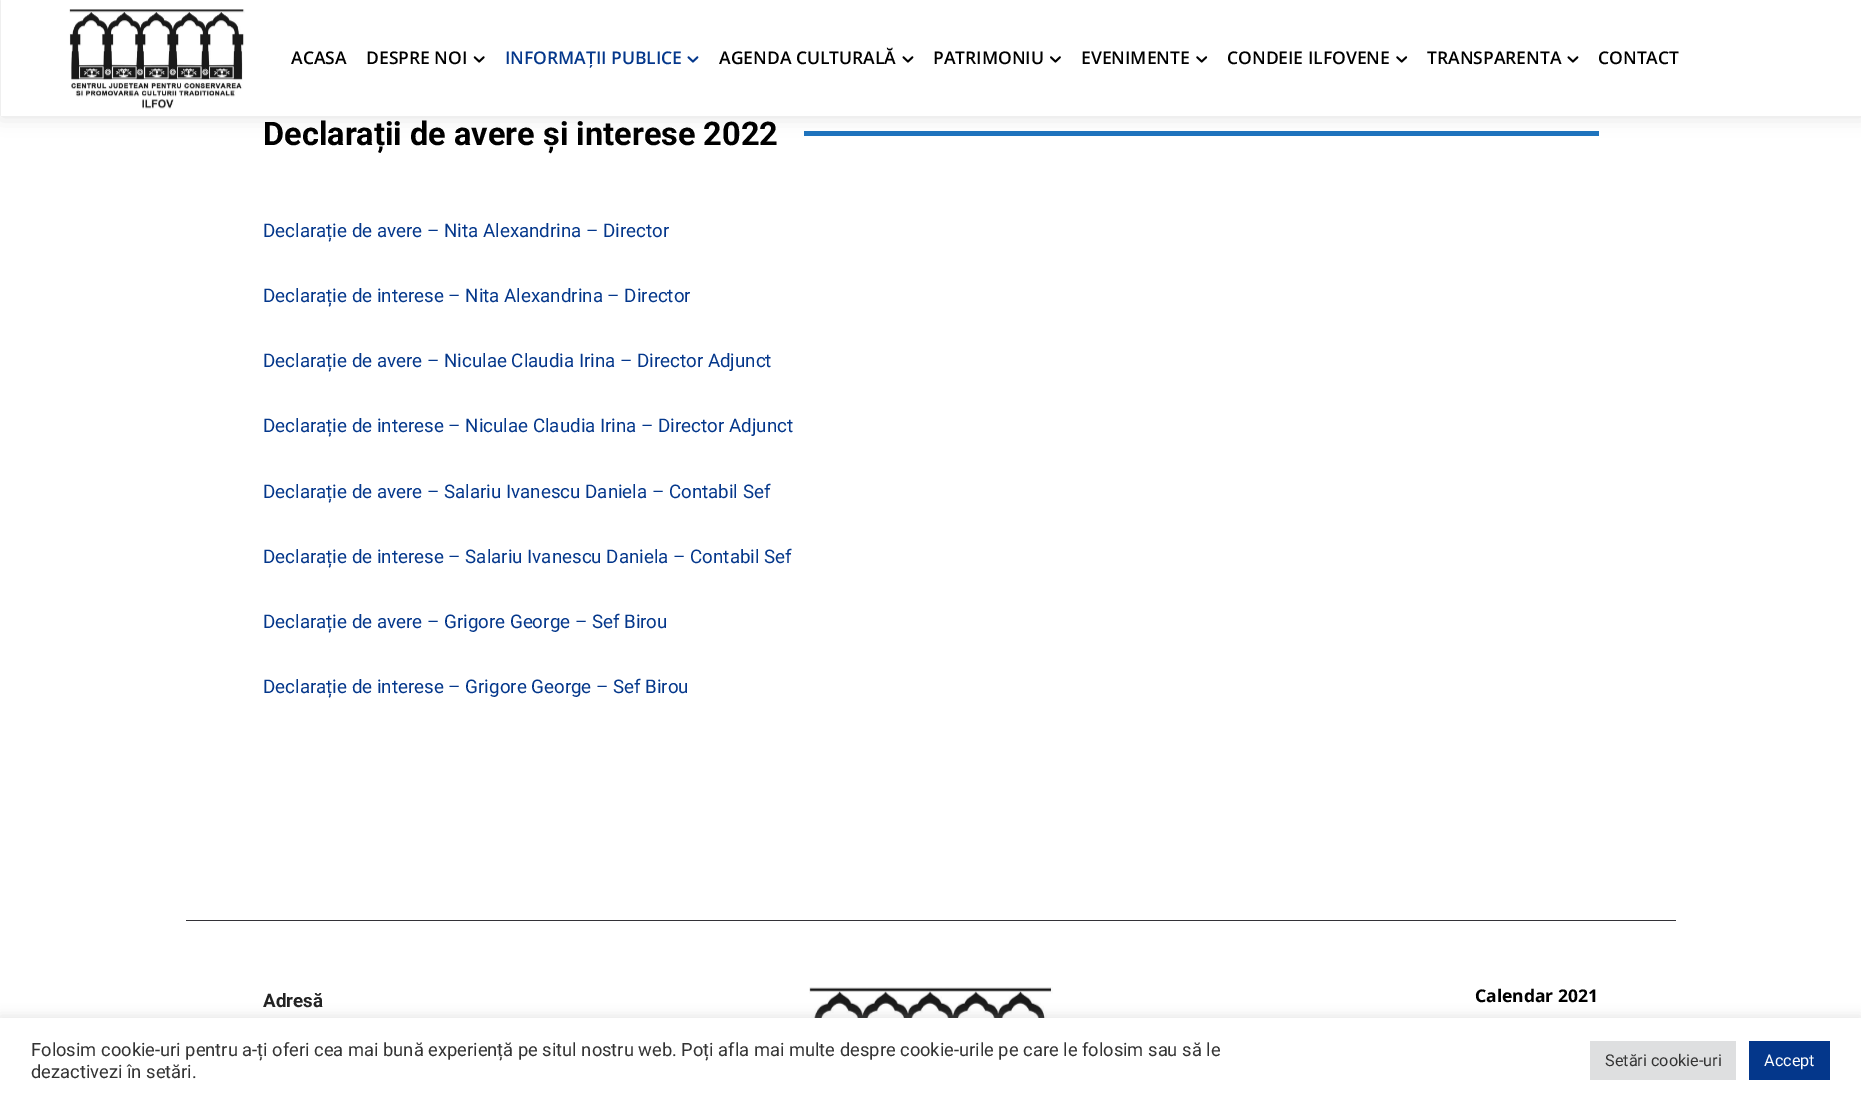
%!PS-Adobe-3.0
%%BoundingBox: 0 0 1861 1103
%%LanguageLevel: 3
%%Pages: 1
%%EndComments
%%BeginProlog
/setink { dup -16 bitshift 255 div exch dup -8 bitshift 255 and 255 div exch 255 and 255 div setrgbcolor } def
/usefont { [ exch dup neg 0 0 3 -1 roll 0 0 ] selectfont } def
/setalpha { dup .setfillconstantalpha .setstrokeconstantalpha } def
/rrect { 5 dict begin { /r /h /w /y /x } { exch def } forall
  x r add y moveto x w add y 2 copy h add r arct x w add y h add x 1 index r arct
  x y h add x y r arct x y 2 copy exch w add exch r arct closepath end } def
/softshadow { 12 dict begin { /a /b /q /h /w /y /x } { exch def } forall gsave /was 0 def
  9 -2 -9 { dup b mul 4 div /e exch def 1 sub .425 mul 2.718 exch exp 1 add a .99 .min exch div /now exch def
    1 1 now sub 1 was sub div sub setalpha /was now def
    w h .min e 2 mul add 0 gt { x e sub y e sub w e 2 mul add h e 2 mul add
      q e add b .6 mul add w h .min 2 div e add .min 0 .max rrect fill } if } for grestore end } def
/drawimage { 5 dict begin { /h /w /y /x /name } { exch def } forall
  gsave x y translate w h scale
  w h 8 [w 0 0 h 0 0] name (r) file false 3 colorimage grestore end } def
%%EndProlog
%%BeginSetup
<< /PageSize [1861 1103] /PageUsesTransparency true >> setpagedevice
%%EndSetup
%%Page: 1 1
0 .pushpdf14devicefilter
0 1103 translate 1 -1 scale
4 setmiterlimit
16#FFFFFF setink
0 0 1861 1103 rectfill
(img1.raw) 69 9 176 100 drawimage
16#1E73BE setink
804 131 795 5 rectfill
gsave
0 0 moveto 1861 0 lineto 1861 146 lineto 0 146 lineto closepath 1 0 moveto 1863 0 lineto 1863 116 lineto 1 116 lineto closepath eoclip newpath
16#000000 setink
1 0 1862 116 0 9.5 0.12 softshadow
grestore
/OpenSans-SemiBold 17.5 usefont
16#000000 setink
291 64 moveto (ACASA) show
366 64 moveto (DESPRE NOI) show
(img2.raw) 473 56 12 7 drawimage
16#04378B setink
505 64 moveto (INFORMAȚII PUBLICE) show
(img3.raw) 687 56 12 7 drawimage
16#000000 setink
719 64 moveto (AGENDA CULTURALĂ) show
(img4.raw) 902 56 12 7 drawimage
933 64 moveto (PATRIMONIU) show
(img5.raw) 1050 56 11 7 drawimage
1081 64 moveto (EVENIMENTE) show
(img6.raw) 1196 56 12 7 drawimage
1227 64 moveto (CONDEIE ILFOVENE) show
(img6.raw) 1396 56 12 7 drawimage
1427 64 moveto (TRANSPARENTA) show
(img4.raw) 1567 56 12 7 drawimage
1598 64 moveto (CONTACT) show
/Roboto-Bold 32.5 usefont
263 145 moveto (Declarații de avere și interese 2022) show
/Roboto-Regular 18.75 usefont
16#04378B setink
[
    [(Declarație de avere – Nita Alexandrina – Director) 263 237]
    [(Declarație de interese – Nita Alexandrina – Director) 263 302]
    [(Declarație de avere – Niculae Claudia Irina – Director Adjunct) 263 367]
    [(Declarație de interese – Niculae Claudia Irina – Director Adjunct) 263 432]
    [(Declarație de avere – Salariu Ivanescu Daniela – Contabil Sef) 263 498]
    [(Declarație de interese – Salariu Ivanescu Daniela – Contabil Sef) 263 563]
    [(Declarație de avere – Grigore George – Sef Birou) 263 628]
    [(Declarație de interese – Grigore George – Sef Birou) 263 693]
] { aload pop moveto show } forall
16#333237 setink
186 920 1490 1 rectfill
/Roboto-Bold 18.75 usefont
16#222222 setink
263 1007 moveto (Adresă) show
(img7.raw) 809 987 244 31 drawimage
/NotoSans-Bold 17.5 usefont
16#000000 setink
1475 1002 moveto (Calendar 2021) show
16#ACABAB setink
0 1016 1861 87 0 6 0.3 softshadow
16#FFFFFF setink
0 1018 1861 85 rectfill
/Roboto-Regular 18.33 usefont
16#333333 setink
31 1056 moveto (Folosim cookie-uri pentru a-ți oferi cea mai bună experiență pe situl nostru web. Poți afla mai multe despre cookie-urile pe care le folosim sau să le) show
31 1078 moveto (dezactivezi în setări.) show
16#DEDFE0 setink
1590 1041 146 39 rectfill
/Roboto-Regular 16.25 usefont
16#333333 setink
1605 1066 moveto (Setări cookie-uri) show
16#04378B setink
1749 1041 81 39 rectfill
16#FFFFFF setink
1764 1066 moveto (Accept) show
.poppdf14devicefilter showpage
%%EOF
